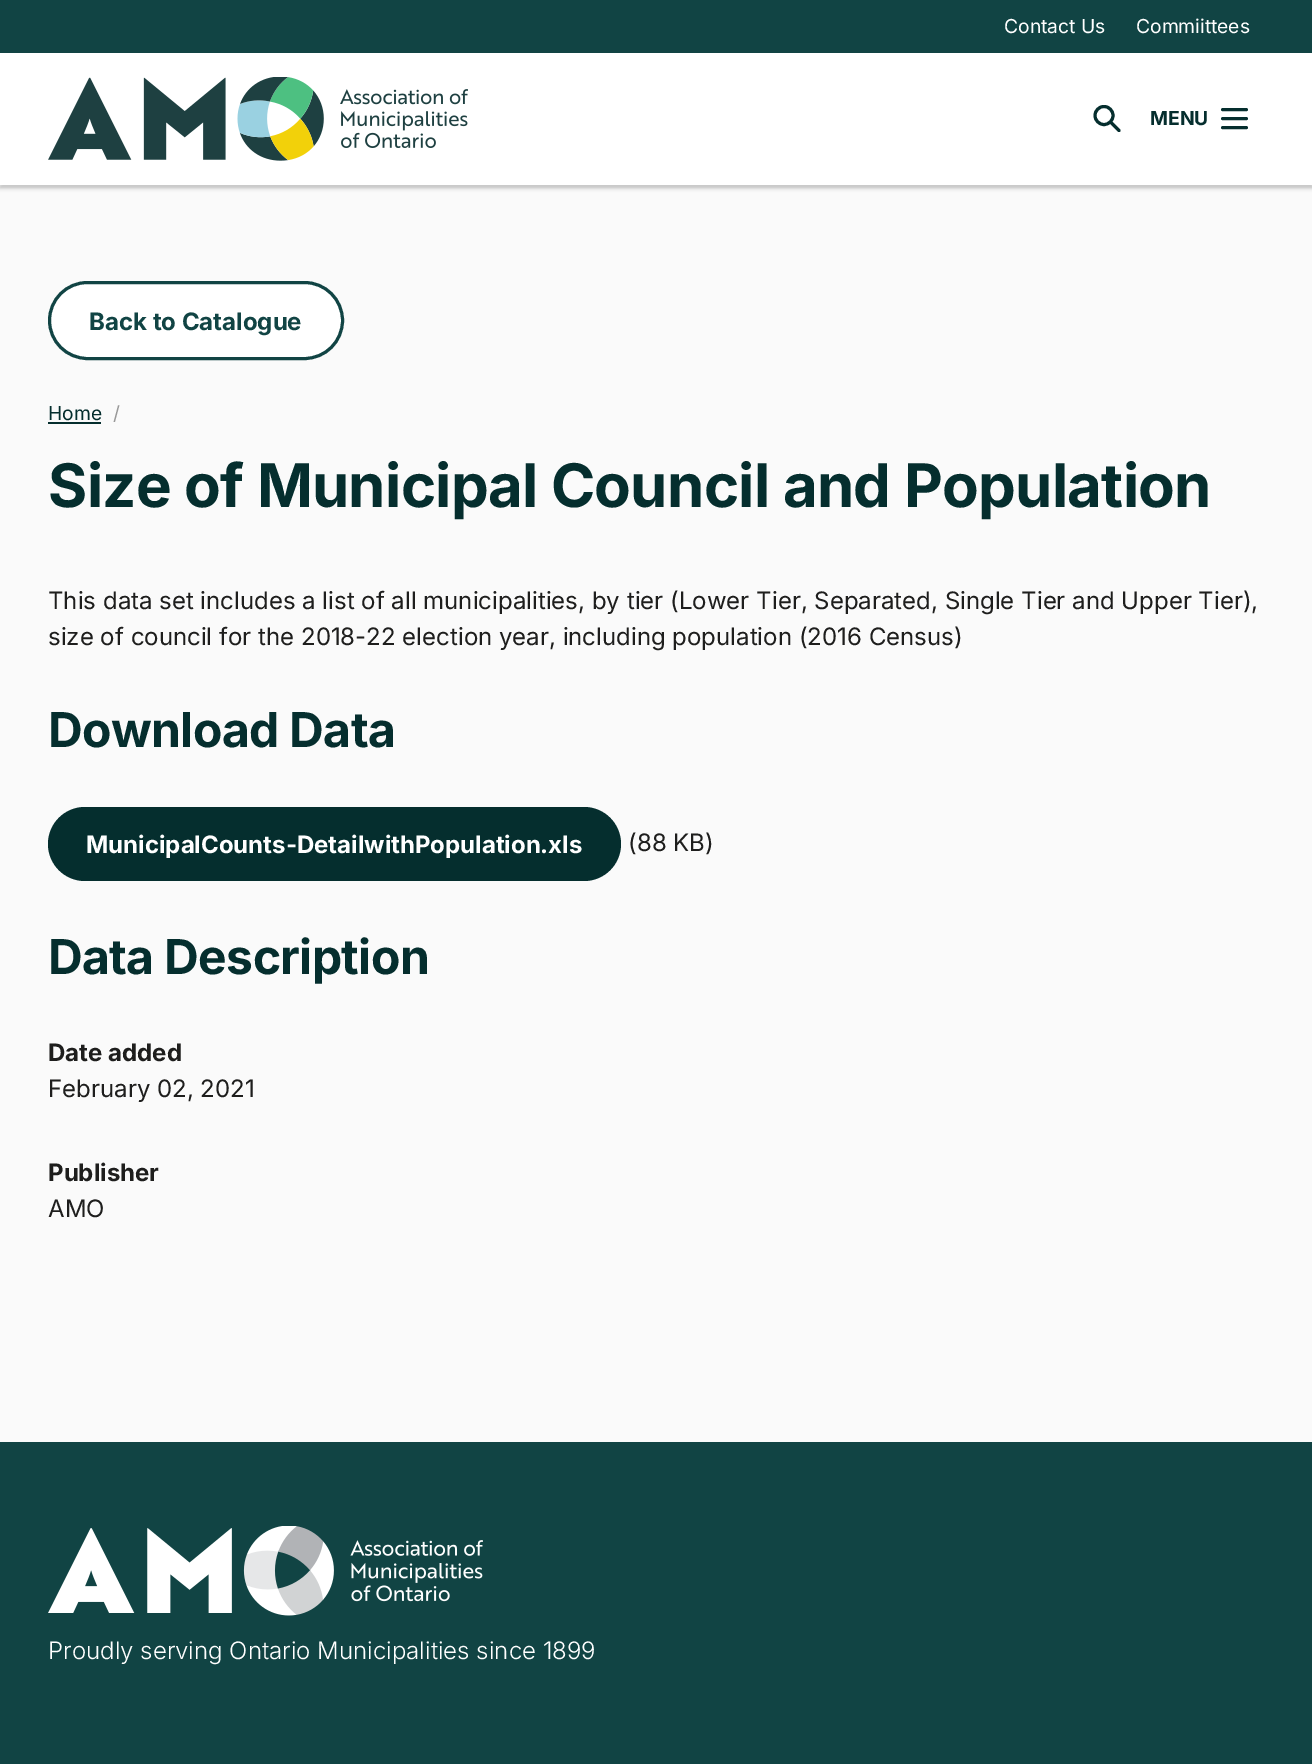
%!PS-Adobe-3.0
%%BoundingBox: 0 0 1312 1764
%%LanguageLevel: 3
%%Pages: 1
%%EndComments
%%BeginProlog
/setink { dup -16 bitshift 255 div exch dup -8 bitshift 255 and 255 div exch 255 and 255 div setrgbcolor } def
/usefont { [ exch dup neg 0 0 3 -1 roll 0 0 ] selectfont } def
/setalpha { dup .setfillconstantalpha .setstrokeconstantalpha } def
/disc { newpath 0 360 arc closepath } def
/rrect { 5 dict begin { /r /h /w /y /x } { exch def } forall
  x r add y moveto x w add y 2 copy h add r arct x w add y h add x 1 index r arct
  x y h add x y r arct x y 2 copy exch w add exch r arct closepath end } def
/softshadow { 12 dict begin { /a /b /q /h /w /y /x } { exch def } forall gsave /was 0 def
  9 -2 -9 { dup b mul 4 div /e exch def 1 sub .425 mul 2.718 exch exp 1 add a .99 .min exch div /now exch def
    1 1 now sub 1 was sub div sub setalpha /was now def
    w h .min e 2 mul add 0 gt { x e sub y e sub w e 2 mul add h e 2 mul add
      q e add b .6 mul add w h .min 2 div e add .min 0 .max rrect fill } if } for grestore end } def
/drawimage { 5 dict begin { /h /w /y /x /name } { exch def } forall
  gsave x y translate w h scale
  w h 8 [w 0 0 h 0 0] name (r) file false 3 colorimage grestore end } def
%%EndProlog
%%BeginSetup
<< /PageSize [1312 1764] /PageUsesTransparency true >> setpagedevice
%%EndSetup
%%Page: 1 1
0 .pushpdf14devicefilter
0 1764 translate 1 -1 scale
4 setmiterlimit
16#FAFAFA setink
0 0 1312 1764 rectfill
16#1E1E1D setink
0 3 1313 185 0 2 0.3 softshadow
16#DDDDDD setink
0 53 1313 132 0 1.5 1 softshadow
16#114444 setink
0 0 1312 53 rectfill
/Inter-Regular 19.25 usefont
16#FFFFFF setink
1004 33 moveto (Contact Us) show
1136 33 moveto (Commiittees) show
0 53 1312 132 rectfill
(img1.raw) 48 77 420 84 drawimage
16#052E2E setink
3 setlinewidth
1104 115.5 9 disc stroke
1 setlinecap
1111.5 123 moveto 1119 130.5 lineto stroke
/Inter-Bold 19.25 usefont
1150 125 moveto (MENU) show
1222.5 109.5 moveto 1246.5 109.5 lineto 1222.5 118.5 moveto 1246.5 118.5 lineto 1222.5 127.5 moveto 1246.5 127.5 lineto stroke
16#FFFFFF setink
49.5 282.5 293 76 38 rrect gsave fill grestore
16#114444 setink
0 setlinecap
stroke
/Inter-Bold 24 usefont
89 330 moveto (Back to Catalogue) show
/Inter-Regular 19.25 usefont
16#052E2E setink
48 420 moveto (Home) show
48 422 53 2 rectfill
16#999999 setink
113 420 moveto (/) show
/Inter-Bold 60 usefont
16#052E2E setink
48 507 moveto -0.75 0 (Size of Municipal Council and Population) ashow
/Inter-Regular 24 usefont
16#1E1E1D setink
48 609 moveto (This data set includes a list of all municipalities, by tier \(Lower Tier, Separated, Single Tier and Upper Tier\),) show
48 645 moveto (size of council for the 2018-22 election year, including population \(2016 Census\)) show
/Inter-Bold 48 usefont
16#052E2E setink
48 747 moveto -0.6 0 (Download Data) ashow
48 807 573 74 37 rrect fill
/Inter-Bold 24 usefont
16#FFFFFF setink
86 853 moveto (MunicipalCounts-DetailwithPopulation.xls) show
/Inter-Regular 24 usefont
16#1E1E1D setink
628 851 moveto (\(88 KB\)) show
/Inter-Bold 48 usefont
16#052E2E setink
48 974 moveto -0.6 0 (Data Description) ashow
/Inter-Bold 24 usefont
16#1E1E1D setink
48 1061 moveto (Date added) show
/Inter-Regular 24 usefont
48 1097 moveto (February 02, 2021) show
/Inter-Bold 24 usefont
48 1181 moveto (Publisher) show
/Inter-Regular 24 usefont
48 1217 moveto (AMO) show
16#114444 setink
0 1442 1312 322 rectfill
(img2.raw) 48 1526 435 90 drawimage
/Inter-Light 24 usefont
16#FFFFFF setink
48 1659 moveto (Proudly serving Ontario Municipalities since 1899) show
.poppdf14devicefilter showpage
%%EOF
